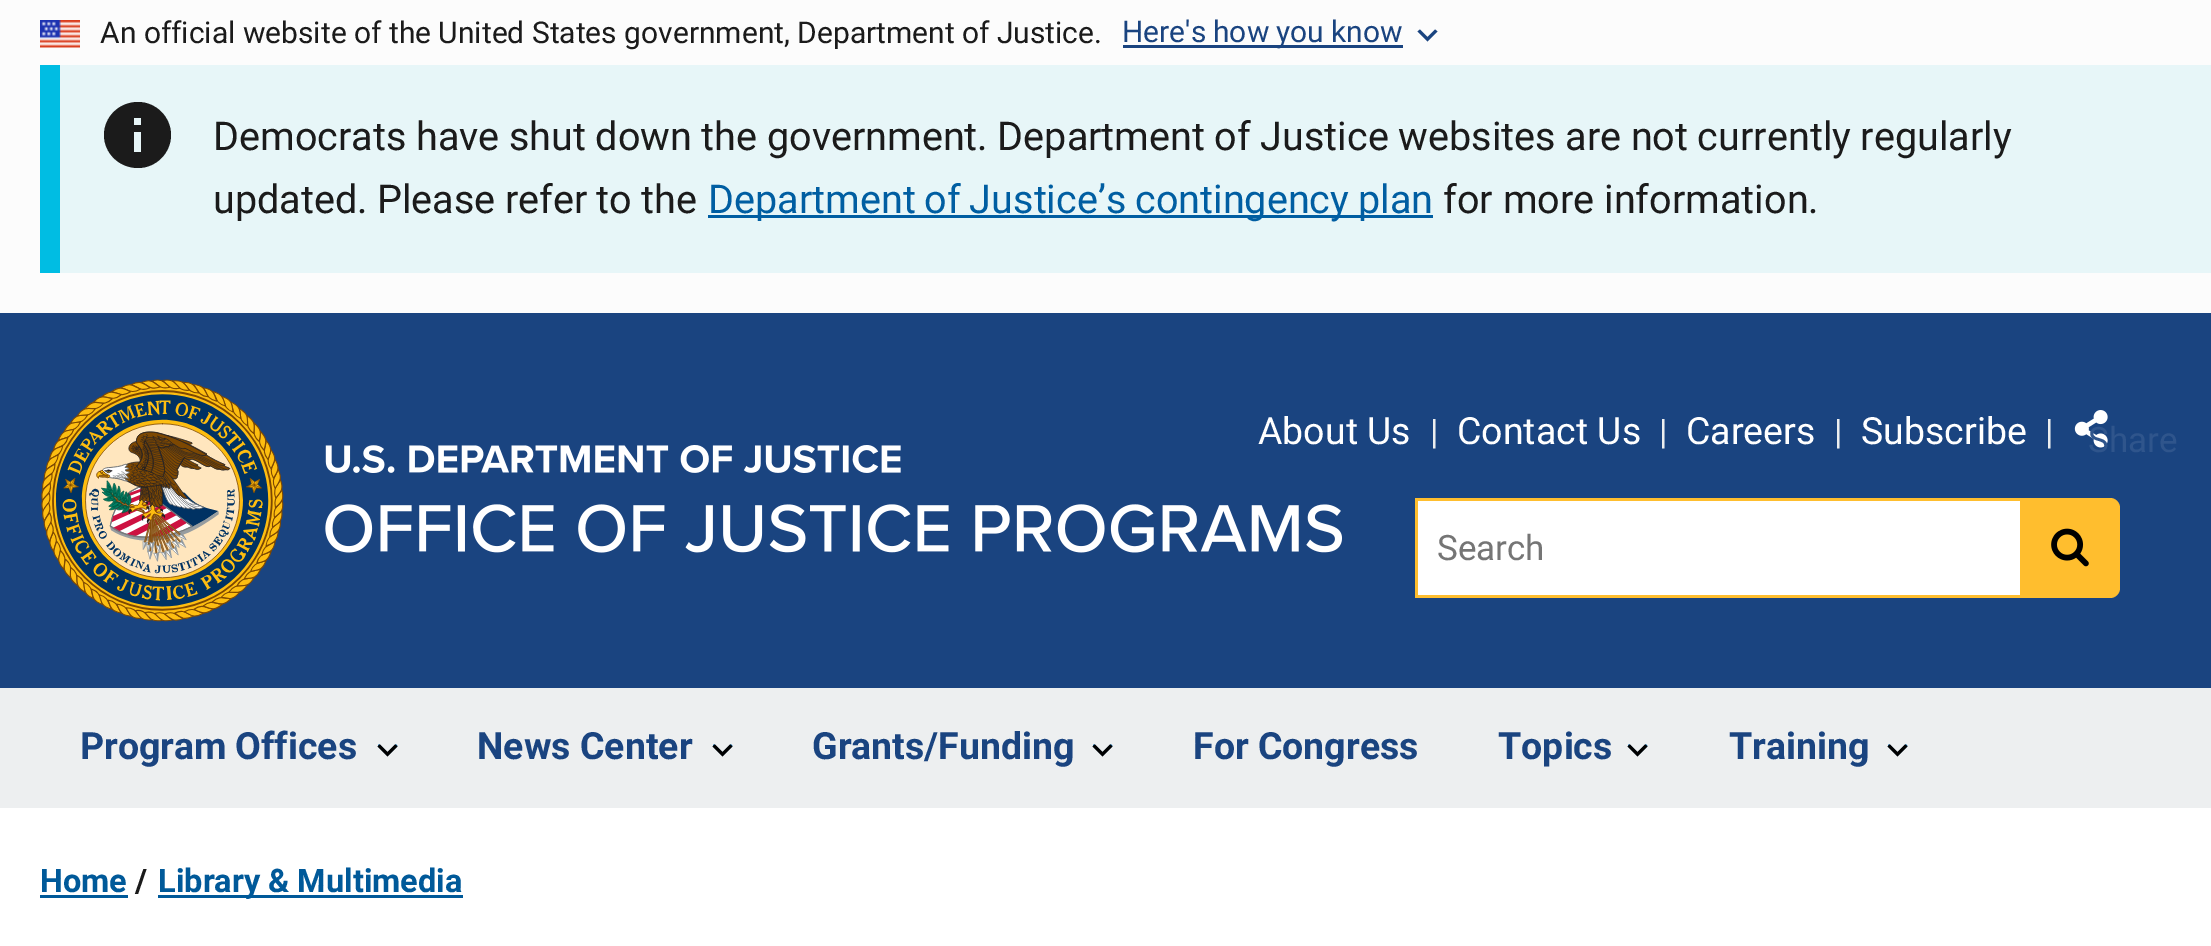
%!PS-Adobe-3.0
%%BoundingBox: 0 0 2211 946
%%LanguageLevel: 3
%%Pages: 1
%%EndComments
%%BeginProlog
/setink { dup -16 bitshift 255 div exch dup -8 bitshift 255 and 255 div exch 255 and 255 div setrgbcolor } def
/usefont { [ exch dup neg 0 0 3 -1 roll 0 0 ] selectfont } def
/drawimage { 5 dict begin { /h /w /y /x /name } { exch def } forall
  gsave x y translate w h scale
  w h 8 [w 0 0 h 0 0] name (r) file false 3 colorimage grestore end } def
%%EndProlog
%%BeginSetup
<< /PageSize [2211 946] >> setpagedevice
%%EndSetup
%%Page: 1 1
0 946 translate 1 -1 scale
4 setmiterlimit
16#FFFFFF setink
0 0 2211 946 rectfill
16#FCFCFC setink
0 0 2211 313 rectfill
(img1.raw) 40 20 40 28 drawimage
/Roboto-Regular 30 usefont
16#1B1B1B setink
100 43 moveto (An official website of the United States government, Department of Justice.) show
16#1A4480 setink
1123 45 280 3 rectfill
1122 42 moveto -0.5 0 32 (Here's how you know) widthshow
1435 29.5 moveto 1427.5 37 lineto 1420 29.5 lineto 1417.5 31.5 lineto 1427.5 41.5 lineto 1437.5 31.5 lineto closepath fill
16#E7F6F8 setink
60 65 2151 208 rectfill
16#00BDE3 setink
40 65 20 208 rectfill
16#1B1B1B setink
138 102 moveto 119 102 104 117 104 135 curveto 104 153 119 168 138 168 curveto 156 168 171 153 171 135 curveto 171 117 156 102 138 102 curveto closepath 141 152 moveto 134 152 lineto 134 132 lineto 141 132 lineto closepath 141 125 moveto 134 125 lineto 134 118 lineto 141 118 lineto closepath fill
/Roboto-Regular 39.6 usefont
213 150 moveto -0.25 0 32 (Democrats have shut down the government. Department of Justice websites are not currently regularly) widthshow
213 213 moveto -0.5 0 32 (updated. Please refer to the) widthshow
16#005EA2 setink
708 215 725 3 rectfill
708 213 moveto -1 0 32 (Department of Justice’s contingency plan) widthshow
16#1B1B1B setink
1443 213 moveto (for more information.) show
16#1A4480 setink
0 313 2211 375 rectfill
(img2.raw) 41 379 243 243 drawimage
(img3.raw) 325 445 1017 108 drawimage
16#EDEFF0 setink
0 688 2211 120 rectfill
/Roboto-Regular 37.5 usefont
16#FFFFFF setink
1258 444 moveto (About Us) show
/Roboto-Regular 35 usefont
16#EDEFF0 setink
1430 444 moveto (|) show
/Roboto-Regular 37.5 usefont
16#FFFFFF setink
1457 444 moveto (Contact Us) show
/Roboto-Regular 35 usefont
16#EDEFF0 setink
1659 444 moveto (|) show
/Roboto-Regular 37.5 usefont
16#FFFFFF setink
1686 444 moveto (Careers) show
/Roboto-Regular 35 usefont
16#EDEFF0 setink
1834 444 moveto (|) show
/Roboto-Regular 37.5 usefont
16#FFFFFF setink
1861 444 moveto (Subscribe) show
/Roboto-Regular 35 usefont
16#EDEFF0 setink
2045 444 moveto (|) show
(img4.raw) 2074 410 34 38 drawimage
16#2F558C setink
2088 452 moveto (Share) show
[
    [1418 501 602 94 16#FFFFFF]
    [1415 498 605 3 16#FFBE2E]
    [1415 595 605 3 16#FFBE2E]
    [1415 498 3 100 16#FFBE2E]
] { aload pop setink rectfill } forall
16#757575 setink
1437 560 moveto (Search) show
16#FFBE2E setink
2020 498 moveto 2110 498 lineto 2115.5 498 2120 502.5 2120 508 curveto 2120 588 lineto 2120 593.5 2115.5 598 2110 598 curveto 2020 598 lineto closepath fill
(img5.raw) 2051 528 38 39 drawimage
(img6.raw) 378 744 20 12 drawimage
/Roboto-Bold 37.5 usefont
16#1A4480 setink
80 759 moveto -1 0 32 (Program Offices) widthshow
16#000000 setink
395 744.5 moveto 387.5 752 lineto 380 744.5 lineto 377.5 746.5 lineto 387.5 756.5 lineto 397.5 746.5 lineto closepath fill
(img6.raw) 713 744 20 12 drawimage
16#1A4480 setink
477 759 moveto (News Center) show
16#000000 setink
730 744.5 moveto 722.5 752 lineto 715 744.5 lineto 712.5 746.5 lineto 722.5 756.5 lineto 732.5 746.5 lineto closepath fill
(img6.raw) 1093 744 20 12 drawimage
16#1A4480 setink
812 759 moveto (Grants/Funding) show
16#000000 setink
1110 744.5 moveto 1102.5 752 lineto 1095 744.5 lineto 1092.5 746.5 lineto 1102.5 756.5 lineto 1112.5 746.5 lineto closepath fill
16#1A4480 setink
1193 759 moveto (For Congress) show
(img6.raw) 1628 744 20 12 drawimage
1498 759 moveto (Topics) show
16#000000 setink
1645 744.5 moveto 1637.5 752 lineto 1630 744.5 lineto 1627.5 746.5 lineto 1637.5 756.5 lineto 1647.5 746.5 lineto closepath fill
(img6.raw) 1888 744 20 12 drawimage
16#1A4480 setink
1729 759 moveto (Training) show
16#000000 setink
1905 744.5 moveto 1897.5 752 lineto 1890 744.5 lineto 1887.5 746.5 lineto 1897.5 756.5 lineto 1907.5 746.5 lineto closepath fill
/Roboto-Bold 32.5 usefont
16#005999 setink
40 892 moveto (Home) show
40 895 88 3 rectfill
16#1B1B1B setink
135 892 moveto (/) show
16#005999 setink
158 895 305 3 rectfill
158 892 moveto (Library & Multimedia) show
showpage
%%EOF
